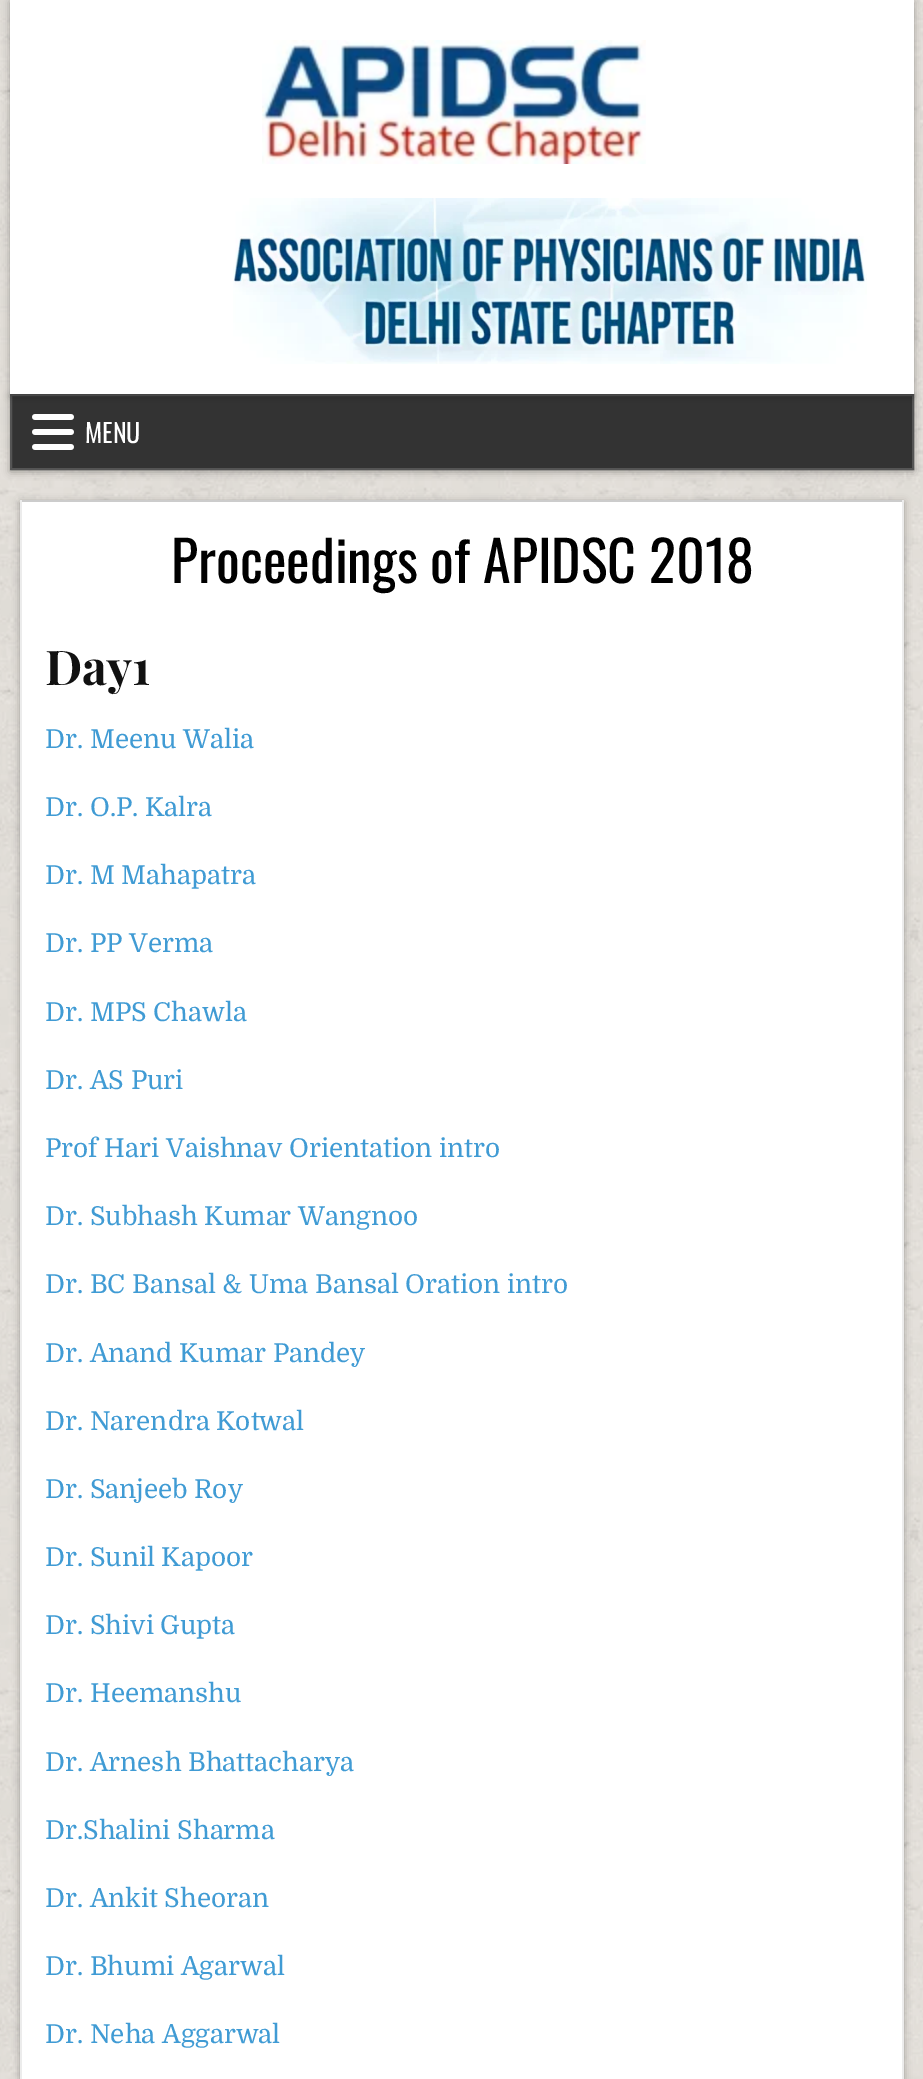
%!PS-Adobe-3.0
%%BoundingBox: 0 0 923 2079
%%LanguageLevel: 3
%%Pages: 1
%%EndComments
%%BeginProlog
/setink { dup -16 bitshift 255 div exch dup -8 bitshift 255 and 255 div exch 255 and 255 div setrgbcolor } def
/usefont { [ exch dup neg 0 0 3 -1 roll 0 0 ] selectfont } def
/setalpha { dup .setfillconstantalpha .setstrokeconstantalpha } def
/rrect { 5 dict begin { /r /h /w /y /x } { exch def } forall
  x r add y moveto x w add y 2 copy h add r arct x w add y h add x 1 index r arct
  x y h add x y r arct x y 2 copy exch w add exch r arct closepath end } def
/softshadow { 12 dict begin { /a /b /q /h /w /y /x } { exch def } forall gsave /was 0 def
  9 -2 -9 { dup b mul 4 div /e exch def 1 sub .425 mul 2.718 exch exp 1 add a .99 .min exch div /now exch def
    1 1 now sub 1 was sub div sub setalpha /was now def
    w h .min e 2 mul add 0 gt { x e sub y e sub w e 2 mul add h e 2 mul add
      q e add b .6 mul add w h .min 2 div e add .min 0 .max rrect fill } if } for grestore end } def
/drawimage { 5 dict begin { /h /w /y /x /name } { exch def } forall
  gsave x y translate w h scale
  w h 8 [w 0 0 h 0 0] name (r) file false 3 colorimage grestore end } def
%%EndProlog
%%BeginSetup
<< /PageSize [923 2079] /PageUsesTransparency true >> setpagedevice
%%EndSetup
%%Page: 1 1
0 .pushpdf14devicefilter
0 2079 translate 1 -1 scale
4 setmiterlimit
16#FFFFFF setink
0 0 923 2079 rectfill
(img1.raw) 0 0 923 2079 drawimage
16#000000 setink
10 396 904 76 0 4 0.3 softshadow
16#333333 setink
11 395 moveto 913 395 lineto 913 469 lineto 11 469 lineto closepath gsave fill grestore
16#555555 setink
2 setlinewidth
stroke
16#000000 setink
10 2 904 394 0 4 0.3 softshadow
16#FFFFFF setink
10 0 904 394 rectfill
(img2.raw) 262 40 384 124 drawimage
(img3.raw) 233 198 634 166 drawimage
(img4.raw) 32 414 42 36 drawimage
/Oswald-Regular 26 usefont
85 443 moveto (MENU) show
16#000000 setink
20 502 884 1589 0 4 0.3 softshadow
[
    [22 502 880 1577 16#FFFFFF]
    [20 500 884 2 16#CCCCCC]
    [902 500 2 1579 16#ECECEC]
    [20 500 2 1579 16#ECECEC]
] { aload pop setink rectfill } forall
/Oswald-Regular 56 usefont
16#000000 setink
171 583 moveto (Proceedings of APIDSC 2018) show
/PlayfairDisplay-Bold 48 usefont
16#111111 setink
45 685 moveto (Day1) show
/Domine-Regular 26 usefont
16#409BD4 setink
[
    [(Dr. Meenu Walia) 45 748]
    [(Dr. O.P. Kalra) 45 816]
    [(Dr. M Mahapatra) 45 884]
    [(Dr. PP Verma) 45 952]
    [(Dr. MPS Chawla) 45 1021]
    [(Dr. AS Puri) 45 1089]
    [(Prof Hari Vaishnav Orientation intro) 45 1157]
    [(Dr. Subhash Kumar Wangnoo) 45 1225]
    [(Dr. BC Bansal & Uma Bansal Oration intro) 45 1293]
    [(Dr. Anand Kumar Pandey) 45 1362]
    [(Dr. Narendra Kotwal) 45 1430]
    [(Dr. Sanjeeb Roy) 45 1498]
    [(Dr. Sunil Kapoor) 45 1566]
    [(Dr. Shivi Gupta) 45 1634]
    [(Dr. Heemanshu) 45 1702]
    [(Dr. Arnesh Bhattacharya) 45 1771]
    [(Dr.Shalini Sharma) 45 1839]
    [(Dr. Ankit Sheoran) 45 1907]
    [(Dr. Bhumi Agarwal) 45 1975]
    [(Dr. Neha Aggarwal) 45 2043]
] { aload pop moveto show } forall
.poppdf14devicefilter showpage
%%EOF
